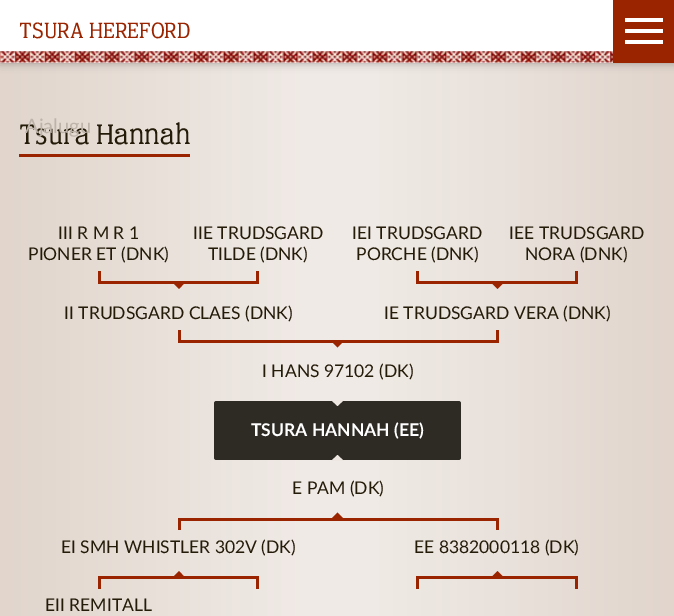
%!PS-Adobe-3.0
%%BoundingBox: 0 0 674 616
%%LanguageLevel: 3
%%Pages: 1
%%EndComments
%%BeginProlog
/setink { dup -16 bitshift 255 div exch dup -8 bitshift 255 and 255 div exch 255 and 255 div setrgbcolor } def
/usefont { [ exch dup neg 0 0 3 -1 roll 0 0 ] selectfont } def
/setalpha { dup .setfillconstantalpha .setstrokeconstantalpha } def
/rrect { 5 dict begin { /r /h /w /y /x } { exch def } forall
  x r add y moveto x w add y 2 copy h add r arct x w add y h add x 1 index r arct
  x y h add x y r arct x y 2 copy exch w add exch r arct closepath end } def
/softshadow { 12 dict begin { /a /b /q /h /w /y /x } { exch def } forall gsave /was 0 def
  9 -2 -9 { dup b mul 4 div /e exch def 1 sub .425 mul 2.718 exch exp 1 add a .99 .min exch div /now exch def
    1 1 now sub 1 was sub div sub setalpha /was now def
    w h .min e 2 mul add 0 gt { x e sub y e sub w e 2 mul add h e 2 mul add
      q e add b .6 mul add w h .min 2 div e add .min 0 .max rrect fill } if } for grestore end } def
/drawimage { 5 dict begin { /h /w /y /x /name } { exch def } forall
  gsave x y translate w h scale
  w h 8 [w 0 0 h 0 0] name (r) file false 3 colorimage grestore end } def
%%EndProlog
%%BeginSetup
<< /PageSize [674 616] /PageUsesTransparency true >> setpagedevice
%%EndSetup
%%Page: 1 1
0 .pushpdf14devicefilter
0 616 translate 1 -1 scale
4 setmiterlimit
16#FFFFFF setink
0 0 674 616 rectfill
gsave 0 63 moveto 674 63 lineto 674 616 lineto 0 616 lineto closepath clip newpath
<< /ShadingType 2 /ColorSpace /DeviceRGB /Coords [0 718 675 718] /Extend [true true] /Function << /FunctionType 3 /Domain [0 1] /Functions [<< /FunctionType 2 /Domain [0 1] /C0 [0.882 0.835 0.8] /C1 [0.941 0.918 0.902] /N 1 >> << /FunctionType 2 /Domain [0 1] /C0 [0.941 0.918 0.902] /C1 [0.941 0.918 0.902] /N 1 >> << /FunctionType 2 /Domain [0 1] /C0 [0.941 0.918 0.902] /C1 [0.882 0.835 0.8] /N 1 >>] /Bounds [0.45 0.55] /Encode [0 1 0 1 0 1] >> >> shfill grestore
16#000000 setink
0 0 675 63 0 4.5 0.3 softshadow
16#FFFFFF setink
0 0 613 63 rectfill
(img1.raw) 0 51 613 12 drawimage
/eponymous-Regular 22.5 usefont
16#9A2400 setink
19 38 moveto (TSURA HEREFORD) show
[
    [613 0 61 63 16#9A2400]
    [625 29 38 4 16#FFFFFF]
    [625 18 38 4 16#FFFFFF]
    [625 40 38 4 16#FFFFFF]
] { aload pop setink rectfill } forall
/eponymous-Regular 28.75 usefont
16#241B09 setink
19 144 moveto (Tsura Hannah) show
/Lato-Regular 20 usefont
16#BEB3A9 setink
25 133 moveto (Ajalugu) show
16#9A2400 setink
19 154 171 3 rectfill
/Lato-Regular 17.5 usefont
16#241B09 setink
58 239 moveto (III R M R 1) show
28 260 moveto (PIONER ET \(DNK\)) show
16#9A2400 setink
98 271 3 13 rectfill
16#241B09 setink
193 239 moveto (IIE TRUDSGARD) show
208 260 moveto (TILDE \(DNK\)) show
16#9A2400 setink
99 281 159 3 rectfill
256 271 3 13 rectfill
172.5 282.5 moveto 185 282.5 lineto 179 289 lineto closepath fill
16#241B09 setink
352 239 moveto (IEI TRUDSGARD) show
356 260 moveto (PORCHE \(DNK\)) show
16#9A2400 setink
416 271 3 13 rectfill
16#241B09 setink
509 239 moveto (IEE TRUDSGARD) show
525 260 moveto (NORA \(DNK\)) show
16#9A2400 setink
418 281 158 3 rectfill
575 271 3 13 rectfill
491 282.5 moveto 504 282.5 lineto 497.5 289 lineto closepath fill
16#241B09 setink
64 319 moveto (II TRUDSGARD CLAES \(DNK\)) show
16#9A2400 setink
178 330 3 13 rectfill
16#241B09 setink
384 319 moveto (IE TRUDSGARD VERA \(DNK\)) show
16#9A2400 setink
179 340 319 3 rectfill
496 330 3 13 rectfill
331 341 moveto 344 341 lineto 337.5 347.5 lineto closepath fill
16#241B09 setink
262 377 moveto (I HANS 97102 \(DK\)) show
16#2E2B25 setink
214 401 247 59 2.5 rrect fill
/Lato-Bold 17.5 usefont
16#FFFFFF setink
251 436 moveto (TSURA HANNAH \(EE\)) show
16#EEE6E0 setink
331 400 moveto 344 400 lineto 337.5 406 lineto closepath 344 461 moveto 331 461 lineto 337.5 455 lineto closepath fill
/Lato-Regular 17.5 usefont
16#241B09 setink
292 494 moveto (E PAM \(DK\)) show
16#9A2400 setink
178 518 3 12 rectfill
16#241B09 setink
61 553 moveto (EI SMH WHISTLER 302V \(DK\)) show
16#9A2400 setink
179 518 319 3 rectfill
344 519 moveto 331 519 lineto 337.5 512.5 lineto closepath fill
496 518 3 12 rectfill
16#241B09 setink
414 553 moveto (EE 8382000118 \(DK\)) show
16#9A2400 setink
98 576 3 13 rectfill
99 576 159 3 rectfill
185 577.5 moveto 172.5 577.5 lineto 179 571 lineto closepath fill
[
    [256 576 3 13 16#9A2400]
    [416 576 3 13 16#9A2400]
    [418 576 158 3 16#9A2400]
] { aload pop setink rectfill } forall
504 577.5 moveto 491 577.5 lineto 497.5 571 lineto closepath fill
575 576 3 13 rectfill
16#241B09 setink
45 611 moveto (EII REMITALL) show
.poppdf14devicefilter showpage
%%EOF
